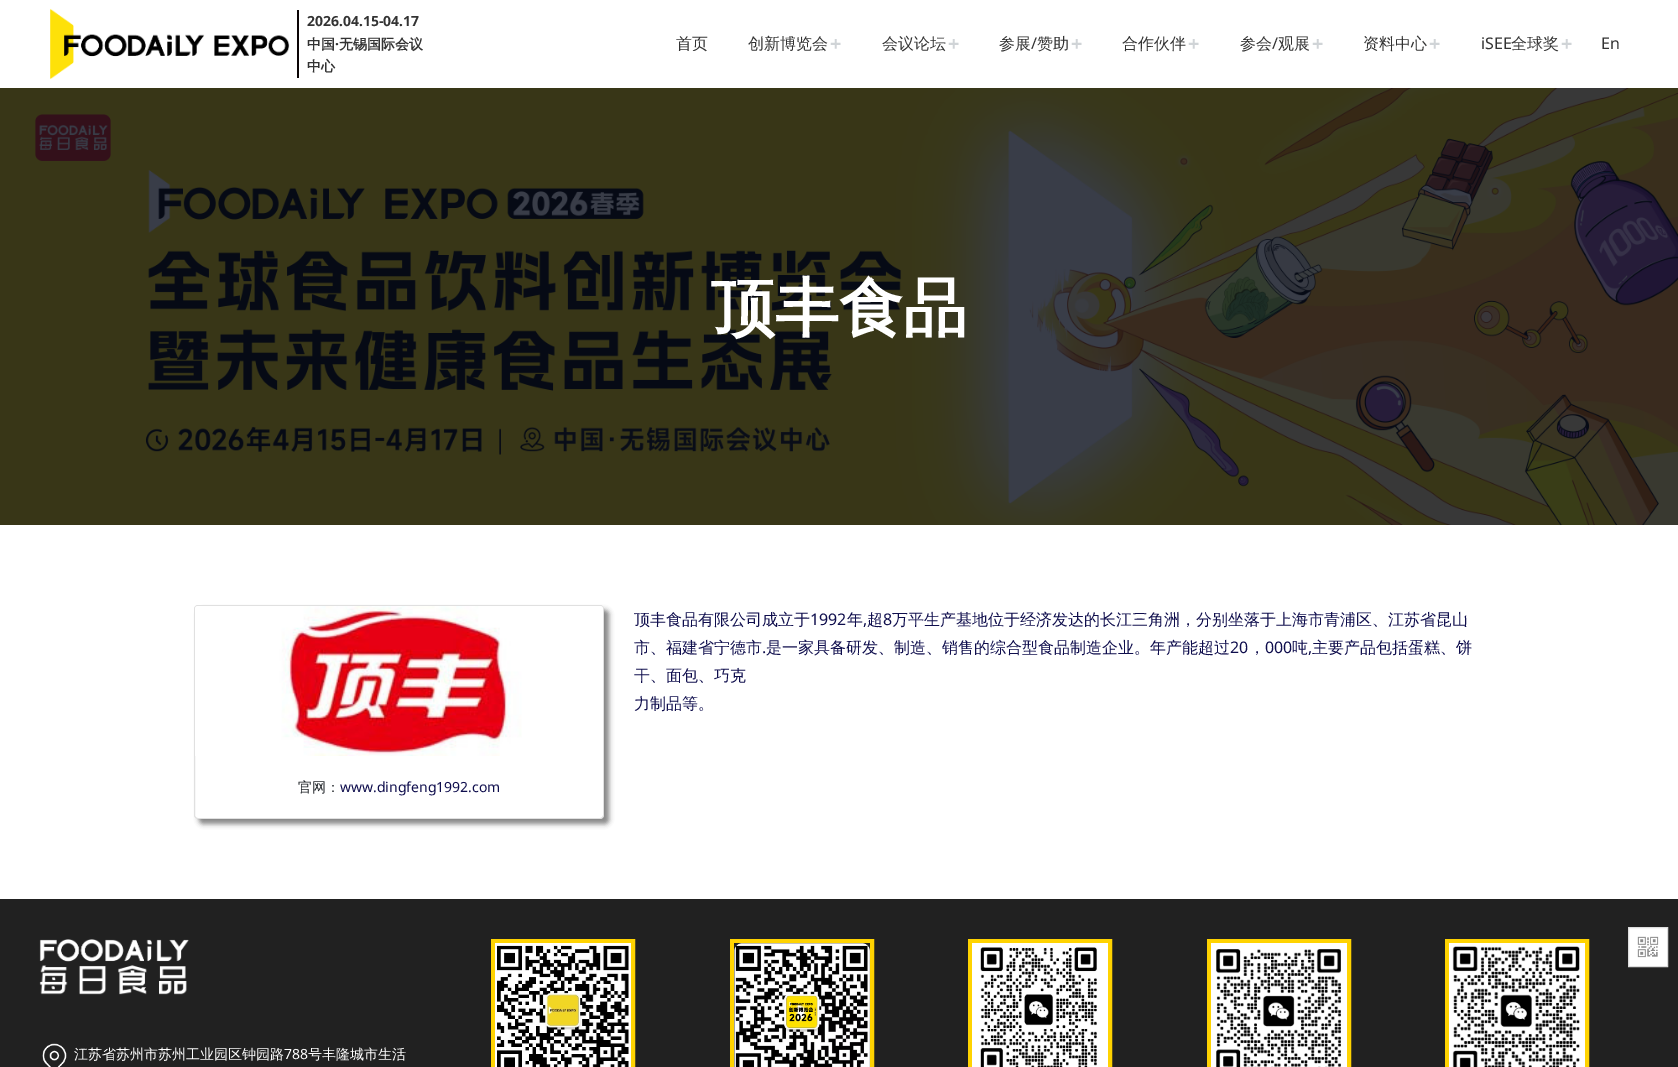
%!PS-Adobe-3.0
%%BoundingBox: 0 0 1678 1067
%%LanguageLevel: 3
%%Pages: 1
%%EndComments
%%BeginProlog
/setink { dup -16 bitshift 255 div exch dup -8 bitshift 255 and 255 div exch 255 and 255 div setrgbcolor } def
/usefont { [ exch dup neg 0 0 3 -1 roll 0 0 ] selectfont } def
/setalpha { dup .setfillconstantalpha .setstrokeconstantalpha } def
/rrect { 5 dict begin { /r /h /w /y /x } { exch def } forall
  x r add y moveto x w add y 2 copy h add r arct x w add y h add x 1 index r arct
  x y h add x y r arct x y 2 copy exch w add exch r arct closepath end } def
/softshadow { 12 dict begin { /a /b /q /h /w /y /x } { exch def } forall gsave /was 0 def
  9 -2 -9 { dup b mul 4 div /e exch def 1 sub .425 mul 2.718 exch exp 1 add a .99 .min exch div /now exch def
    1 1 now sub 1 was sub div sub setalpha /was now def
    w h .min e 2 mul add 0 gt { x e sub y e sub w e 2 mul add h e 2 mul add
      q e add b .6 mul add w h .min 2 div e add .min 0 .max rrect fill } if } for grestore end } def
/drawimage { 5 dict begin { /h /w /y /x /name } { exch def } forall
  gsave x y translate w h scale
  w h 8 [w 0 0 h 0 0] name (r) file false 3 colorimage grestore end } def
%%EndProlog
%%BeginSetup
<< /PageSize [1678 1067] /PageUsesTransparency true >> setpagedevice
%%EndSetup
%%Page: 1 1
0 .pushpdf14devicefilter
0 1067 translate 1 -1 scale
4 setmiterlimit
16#FFFFFF setink
0 0 1678 1067 rectfill
(img1.raw) 50 8 240 72 drawimage
16#0A0405 setink
297 10 2 68 rectfill
/NotoSans-Bold 14 usefont
16#333333 setink
307 26 moveto (2026.04.15-04.17) show
/WenQuanYiZenHei-Bold 14 usefont
307 49 moveto (中国 无锡国际会议) show
/NotoSans-Bold 14 usefont
335 49 moveto (·) show
/WenQuanYiZenHei-Bold 14 usefont
307 71 moveto (中心) show
/WenQuanYiZenHei-Medium 16 usefont
676 49 moveto (首页) show
748 49 moveto (创新博览会) show
/NotoSans-Bold 20 usefont
16#D0D4D7 setink
830 51 moveto (+) show
/WenQuanYiZenHei-Medium 16 usefont
16#333333 setink
882 49 moveto (会议论坛) show
/NotoSans-Bold 20 usefont
16#D0D4D7 setink
948 51 moveto (+) show
/WenQuanYiZenHei-Medium 16 usefont
16#333333 setink
999 49 moveto (参展) show
/NotoSans-Regular 16 usefont
1031 49 moveto (/) show
/WenQuanYiZenHei-Medium 16 usefont
1037 49 moveto (赞助) show
/NotoSans-Bold 20 usefont
16#D0D4D7 setink
1071 51 moveto (+) show
/WenQuanYiZenHei-Medium 16 usefont
16#333333 setink
1122 49 moveto (合作伙伴) show
/NotoSans-Bold 20 usefont
16#D0D4D7 setink
1188 51 moveto (+) show
/WenQuanYiZenHei-Medium 16 usefont
16#333333 setink
1240 49 moveto (参会) show
/NotoSans-Regular 16 usefont
1272 49 moveto (/) show
/WenQuanYiZenHei-Medium 16 usefont
1278 49 moveto (观展) show
/NotoSans-Bold 20 usefont
16#D0D4D7 setink
1312 51 moveto (+) show
/WenQuanYiZenHei-Medium 16 usefont
16#333333 setink
1363 49 moveto (资料中心) show
/NotoSans-Bold 20 usefont
16#D0D4D7 setink
1429 51 moveto (+) show
/NotoSans-Regular 16 usefont
16#333333 setink
1481 49 moveto (iSEE) show
/WenQuanYiZenHei-Medium 16 usefont
1511 49 moveto (全球奖) show
/NotoSans-Bold 20 usefont
16#D0D4D7 setink
1561 51 moveto (+) show
/NotoSans-Regular 16 usefont
16#333333 setink
1601 49 moveto (En) show
(img2.raw) 0 88 1678 437 drawimage
/WenQuanYiZenHei-Bold 64 usefont
16#FFFFFF setink
711 330 moveto (顶丰食品) show
/WenQuanYiZenHei-Medium 16 usefont
16#0F0E4D setink
634 625 moveto (顶丰食品有限公司成立于) show
/NotoSans-Regular 16 usefont
810 625 moveto (1992) show
/WenQuanYiZenHei-Medium 16 usefont
847 625 moveto (年) show
/NotoSans-Regular 16 usefont
863 625 moveto (,) show
/WenQuanYiZenHei-Medium 16 usefont
867 625 moveto (超) show
/NotoSans-Regular 16 usefont
883 625 moveto (8) show
/WenQuanYiZenHei-Medium 16 usefont
892 625 moveto (万平生产基地位于经济发达的长江三角洲，分别坐落于上海市青浦区、江苏省昆山) show
634 653 moveto (市、福建省宁德市) show
/NotoSans-Regular 16 usefont
762 653 moveto (.) show
/WenQuanYiZenHei-Medium 16 usefont
766 653 moveto (是一家具备研发、制造、销售的综合型食品制造企业。年产能超过) show
/NotoSans-Regular 16 usefont
1230 653 moveto (20) show
/WenQuanYiZenHei-Medium 16 usefont
1249 653 moveto (，) show
/NotoSans-Regular 16 usefont
1265 653 moveto (000) show
/WenQuanYiZenHei-Medium 16 usefont
1292 653 moveto (吨) show
/NotoSans-Regular 16 usefont
1308 653 moveto (,) show
/WenQuanYiZenHei-Medium 16 usefont
[
    [(主要产品包括蛋糕、饼) 1312 653]
    [(干、面包、巧克) 634 681]
    [(力制品等。) 634 709]
] { aload pop moveto show } forall
16#888888 setink
199 610 410 214 4 2.5 1 softshadow
16#FFFFFF setink
194 605 410 214 4 rrect fill
0.12 setalpha
16#000000 setink
194.5 605.5 409 213 3.5 rrect stroke
1 setalpha
(img3.raw) 195 606 408 150 drawimage
/WenQuanYiZenHei-Medium 14 usefont
16#212529 setink
298 792 moveto (官网：) show
/NotoSans-Regular 14 usefont
16#0F0E4D setink
340 792 moveto (www.dingfeng1992.com) show
16#212121 setink
0 899 1678 168 rectfill
16#FFFFFF setink
1628.5 927.5 moveto 1667.5 927.5 lineto 1667.5 966.5 lineto 1628.5 966.5 lineto closepath gsave fill grestore
16#DDDDDD setink
stroke
(img4.raw) 1637 936 22 22 drawimage
(img5.raw) 39 939 150 56 drawimage
(img6.raw) 42 1043 25 24 drawimage
/WenQuanYiZenHei-Medium 14 usefont
16#FFFFFF setink
74 1059 moveto (江苏省苏州市苏州工业园区钟园路) show
/NotoSans-Regular 14 usefont
284 1059 moveto (788) show
/WenQuanYiZenHei-Medium 14 usefont
308 1059 moveto (号丰隆城市生活) show
16#FFD300 setink
4 setlinewidth
493 941 140 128 rectstroke
(img7.raw) 495 943 136 124 drawimage
732 941 140 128 rectstroke
(img8.raw) 734 943 136 124 drawimage
970 941 140 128 rectstroke
(img9.raw) 972 943 136 124 drawimage
1209 941 140 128 rectstroke
(img10.raw) 1211 943 136 124 drawimage
1447 941 140 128 rectstroke
(img11.raw) 1449 943 136 124 drawimage
.poppdf14devicefilter showpage
%%EOF
